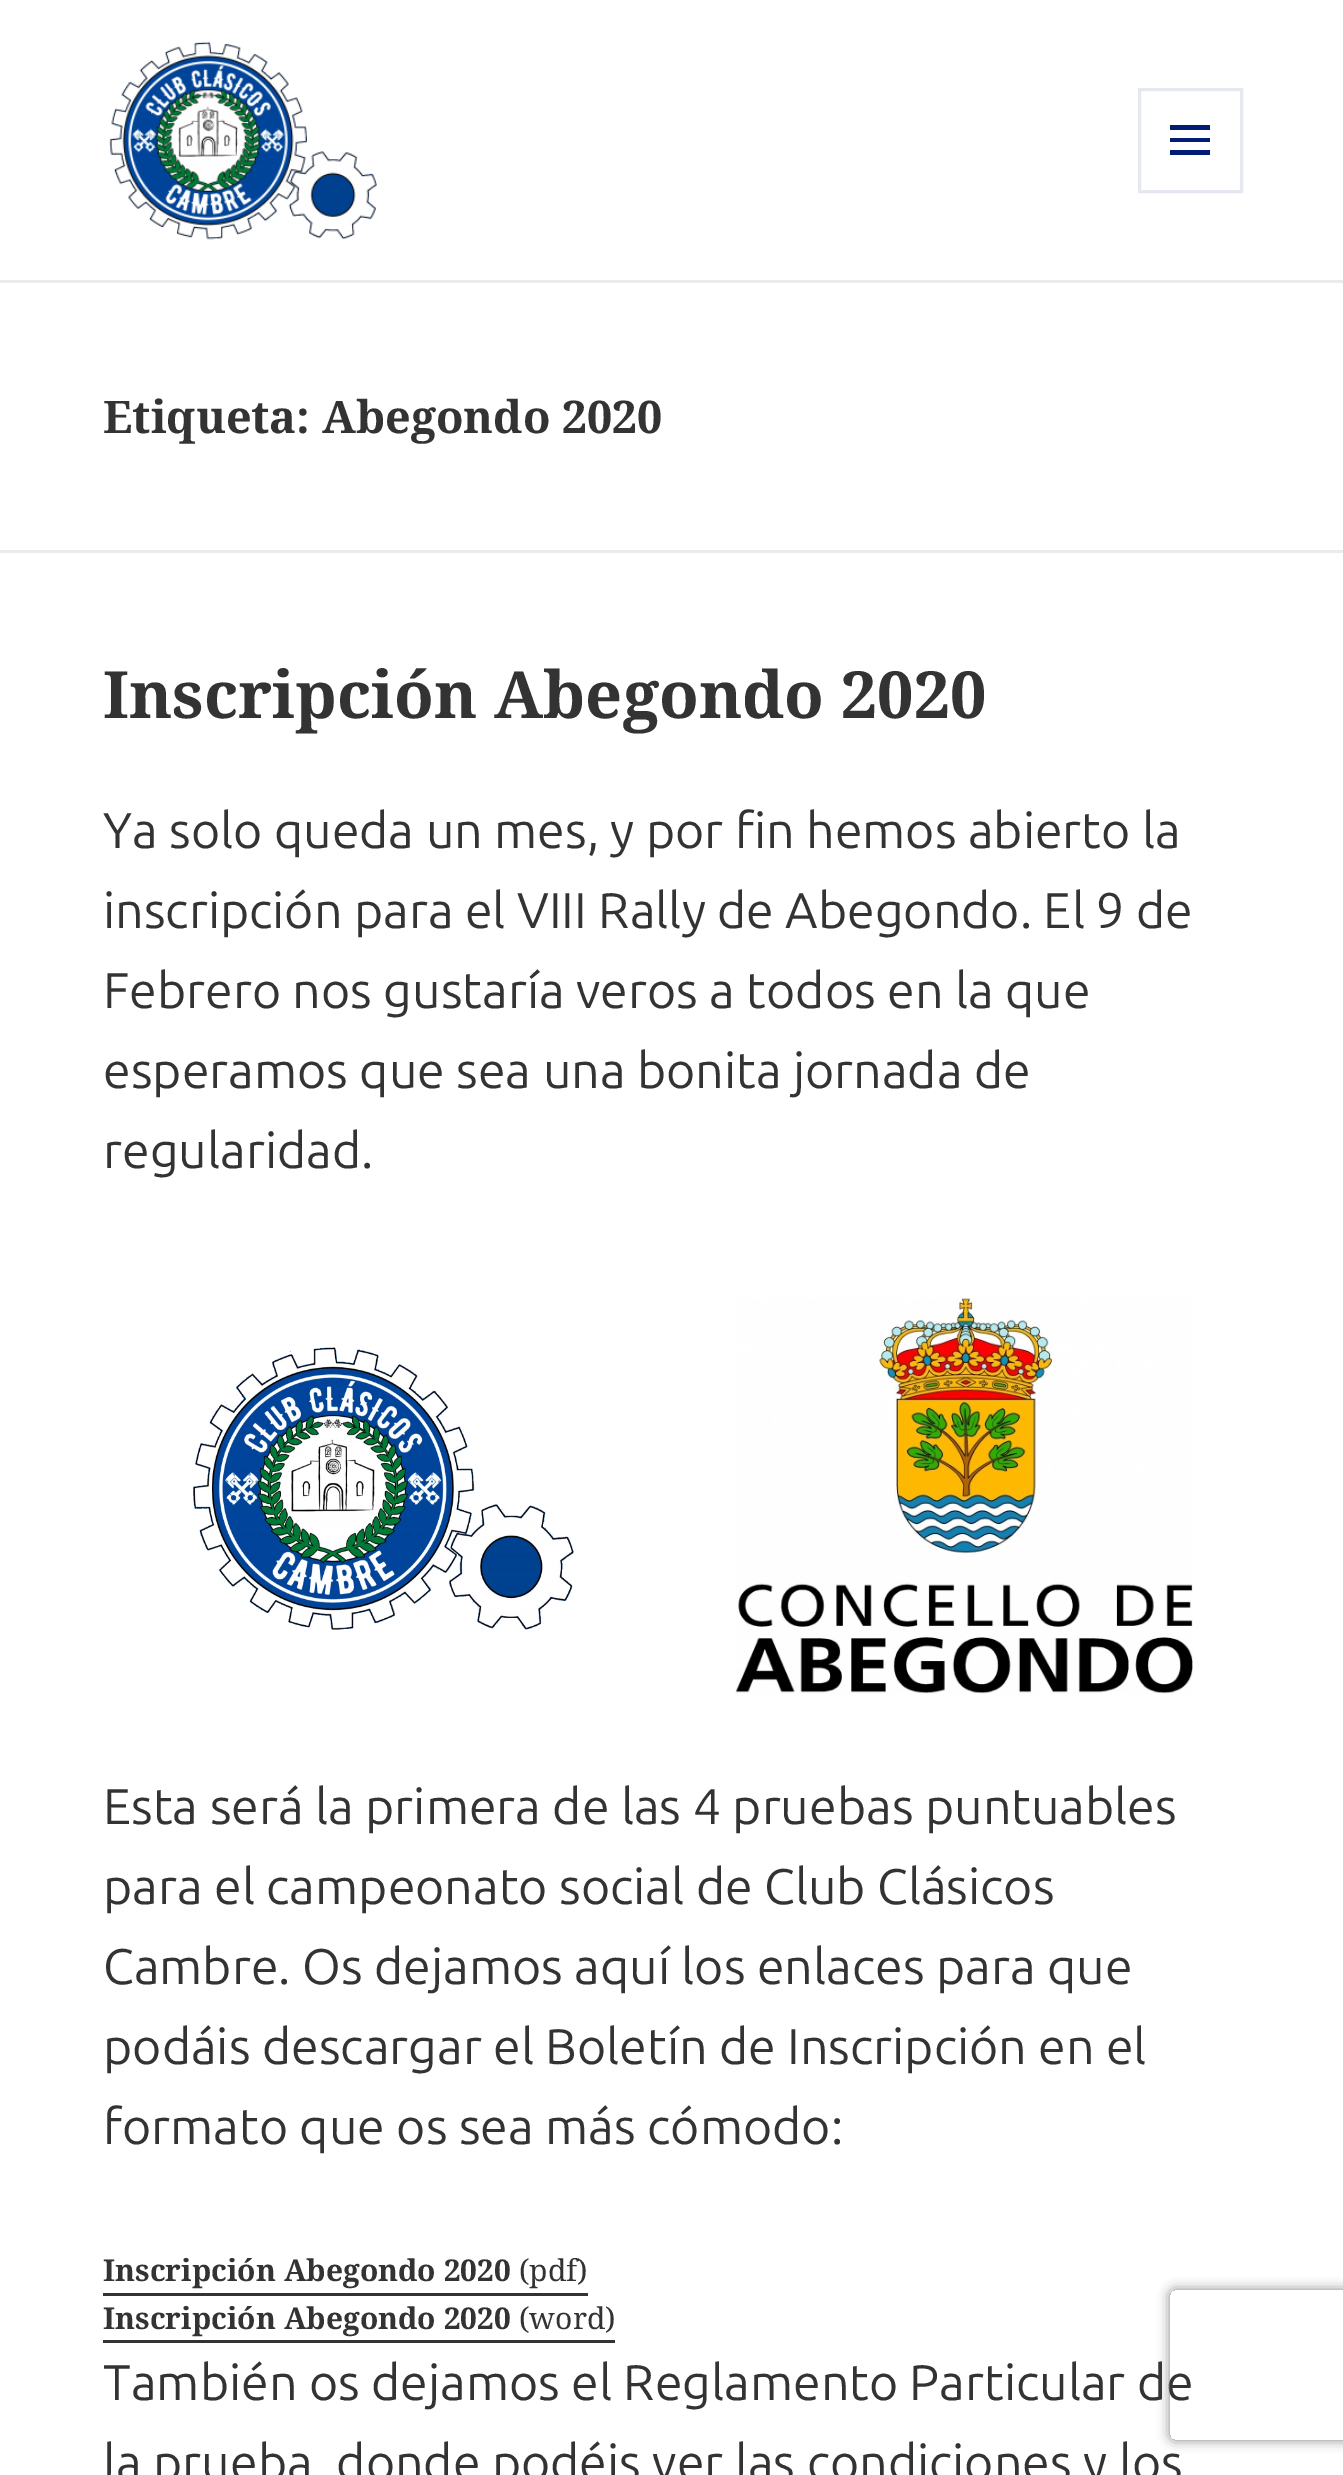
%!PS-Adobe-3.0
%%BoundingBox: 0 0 1343 2475
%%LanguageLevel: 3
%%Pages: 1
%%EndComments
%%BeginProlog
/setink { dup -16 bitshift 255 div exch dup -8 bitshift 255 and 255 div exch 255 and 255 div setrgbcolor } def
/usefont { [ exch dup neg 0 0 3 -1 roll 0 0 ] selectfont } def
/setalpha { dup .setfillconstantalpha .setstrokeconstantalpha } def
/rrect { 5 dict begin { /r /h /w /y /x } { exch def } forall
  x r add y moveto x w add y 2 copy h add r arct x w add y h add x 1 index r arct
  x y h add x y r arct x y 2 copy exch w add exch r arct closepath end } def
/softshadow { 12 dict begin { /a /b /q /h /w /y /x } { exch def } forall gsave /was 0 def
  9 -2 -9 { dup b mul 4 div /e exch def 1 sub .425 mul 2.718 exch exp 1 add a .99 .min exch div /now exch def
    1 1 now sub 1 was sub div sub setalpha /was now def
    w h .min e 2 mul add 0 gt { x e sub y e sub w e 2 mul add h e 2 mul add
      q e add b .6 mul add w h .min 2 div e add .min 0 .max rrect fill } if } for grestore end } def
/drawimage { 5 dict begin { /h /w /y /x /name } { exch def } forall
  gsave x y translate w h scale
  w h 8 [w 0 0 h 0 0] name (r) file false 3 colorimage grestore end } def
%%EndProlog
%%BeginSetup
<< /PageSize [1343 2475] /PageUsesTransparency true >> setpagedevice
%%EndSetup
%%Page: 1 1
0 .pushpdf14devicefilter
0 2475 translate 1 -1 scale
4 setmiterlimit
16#FFFFFF setink
0 0 1343 2475 rectfill
16#EBEBEB setink
0 280 1343 3 rectfill
(img1.raw) 109 41 268 199 drawimage
16#E6E8F1 setink
3 setlinewidth
1139.5 89.5 102 102 rectstroke
16#011C77 setink
1170 155 moveto 1170 150 lineto 1210 150 lineto 1210 155 lineto closepath 1170 125 moveto 1210 125 lineto 1210 130 lineto 1170 130 lineto closepath 1170 142 moveto 1170 138 lineto 1210 138 lineto 1210 142 lineto closepath fill
16#EBEBEB setink
0 550 1343 3 rectfill
/NotoSerif-Bold 45 usefont
16#333333 setink
103 433 moveto (Etiqueta: Abegondo 2020) show
/NotoSerif-Bold 65 usefont
103 718 moveto (Inscripción Abegondo 2020) show
/Ubuntu-Regular 50 usefont
[
    [(Ya solo queda un mes, y por fin hemos abierto la) 103 848]
    [(inscripción para el VIII Rally de Abegondo. El 9 de) 103 928]
    [(Febrero nos gustaría veros a todos en la que) 103 1008]
    [(esperamos que sea una bonita jornada de) 103 1088]
    [(regularidad.) 103 1168]
] { aload pop moveto show } forall
(img2.raw) 193 1347 381 283 drawimage
(img3.raw) 735 1298 458 396 drawimage
[
    [(Esta será la primera de las 4 pruebas puntuables) 103 1824]
    [(para el campeonato social de Club Clásicos) 103 1904]
    [(Cambre. Os dejamos aquí los enlaces para que) 103 1984]
    [(podáis descargar el Boletín de Inscripción en el) 103 2064]
    [(formato que os sea más cómodo:) 103 2144]
] { aload pop moveto show } forall
/NotoSerif-Bold 30 usefont
103 2281 moveto (Inscripción Abegondo 2020) show
103 2293 485 3 rectfill
/NotoSerif-Regular 30 usefont
519 2281 moveto (\(pdf\)) show
/NotoSerif-Bold 30 usefont
103 2329 moveto (Inscripción Abegondo 2020) show
103 2340 512 3 rectfill
/NotoSerif-Regular 30 usefont
519 2329 moveto (\(word\)) show
/Ubuntu-Regular 50 usefont
103 2400 moveto (También os dejamos el Reglamento Particular de) show
103 2480 moveto (la prueba, donde podéis ver las condiciones y los) show
gsave
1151 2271 moveto 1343 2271 lineto 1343 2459 lineto 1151 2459 lineto closepath 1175 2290 moveto 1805 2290 lineto 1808 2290 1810 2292 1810 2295 curveto 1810 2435 lineto 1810 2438 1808 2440 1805 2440 curveto 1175 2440 lineto 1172 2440 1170 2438 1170 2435 curveto 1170 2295 lineto 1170 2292 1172 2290 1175 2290 curveto closepath eoclip newpath
16#808080 setink
1170 2290 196 150 5 6 1 softshadow
grestore
.poppdf14devicefilter showpage
%%EOF
